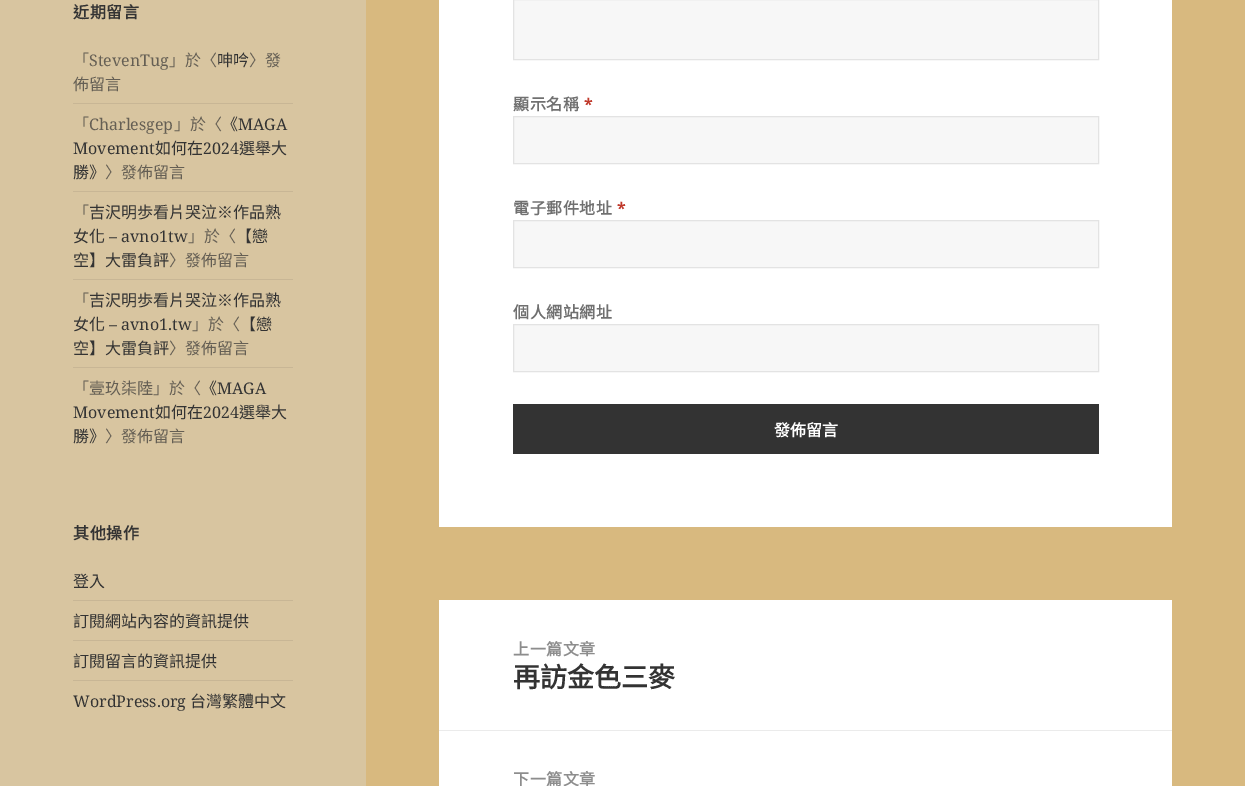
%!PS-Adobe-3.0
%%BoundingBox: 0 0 1245 786
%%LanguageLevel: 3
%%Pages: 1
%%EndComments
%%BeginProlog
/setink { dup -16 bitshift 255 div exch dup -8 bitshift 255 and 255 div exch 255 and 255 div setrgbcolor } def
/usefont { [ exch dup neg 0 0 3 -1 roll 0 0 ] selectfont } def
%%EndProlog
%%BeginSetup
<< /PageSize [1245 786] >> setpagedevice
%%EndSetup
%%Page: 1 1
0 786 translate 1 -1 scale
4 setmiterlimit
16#D8B97F setink
0 0 1245 786 rectfill
16#D8C5A0 setink
0 0 366 786 rectfill
/NotoSansCJKTC-Bold 16 usefont
16#333333 setink
73 18 moveto 0.5 0 (近期留言) ashow
/NotoSansCJKTC-Regular 16 usefont
16#655F54 setink
73 66 moveto (「) show
/NotoSerif-Regular 16 usefont
89 66 moveto (StevenTug) show
/NotoSansCJKTC-Regular 16 usefont
169 66 moveto (」於〈) show
16#333333 setink
217 66 moveto (呻吟) show
16#655F54 setink
249 66 moveto (〉發) show
73 90 moveto (佈留言) show
16#C8B695 setink
73 103 220 1 rectfill
16#655F54 setink
73 130 moveto (「) show
/NotoSerif-Regular 16 usefont
89 130 moveto (Charlesgep) show
/NotoSansCJKTC-Regular 16 usefont
174 130 moveto (」於〈) show
16#333333 setink
222 130 moveto (《) show
/NotoSerif-Regular 16 usefont
238 130 moveto (MAGA) show
73 154 moveto (Movement) show
/NotoSansCJKTC-Regular 16 usefont
155 154 moveto (如何在) show
/NotoSerif-Regular 16 usefont
203 154 moveto (2024) show
/NotoSansCJKTC-Regular 16 usefont
239 154 moveto (選舉大) show
73 178 moveto (勝》) show
16#655F54 setink
105 178 moveto (〉發佈留言) show
16#C8B695 setink
73 191 220 1 rectfill
16#655F54 setink
73 218 moveto (「) show
16#333333 setink
89 218 moveto (吉沢明歩看片哭泣※作品熟) show
73 242 moveto (女化) show
/NotoSerif-Regular 16 usefont
109 242 moveto (– avno1tw) show
/NotoSansCJKTC-Regular 16 usefont
16#655F54 setink
188 242 moveto (」於〈) show
16#333333 setink
236 242 moveto (【戀) show
73 266 moveto (空】大雷負評) show
16#655F54 setink
169 266 moveto (〉發佈留言) show
16#C8B695 setink
73 279 220 1 rectfill
16#655F54 setink
73 306 moveto (「) show
16#333333 setink
89 306 moveto (吉沢明歩看片哭泣※作品熟) show
73 330 moveto (女化) show
/NotoSerif-Regular 16 usefont
109 330 moveto (– avno1.tw) show
/NotoSansCJKTC-Regular 16 usefont
16#655F54 setink
192 330 moveto (」於〈) show
16#333333 setink
240 330 moveto (【戀) show
73 354 moveto (空】大雷負評) show
16#655F54 setink
169 354 moveto (〉發佈留言) show
16#C8B695 setink
73 367 220 1 rectfill
16#655F54 setink
73 394 moveto (「壹玖柒陸」於〈) show
16#333333 setink
201 394 moveto (《) show
/NotoSerif-Regular 16 usefont
217 394 moveto (MAGA) show
73 418 moveto (Movement) show
/NotoSansCJKTC-Regular 16 usefont
155 418 moveto (如何在) show
/NotoSerif-Regular 16 usefont
203 418 moveto (2024) show
/NotoSansCJKTC-Regular 16 usefont
239 418 moveto (選舉大) show
73 442 moveto (勝》) show
16#655F54 setink
105 442 moveto (〉發佈留言) show
/NotoSansCJKTC-Bold 16 usefont
16#333333 setink
73 539 moveto 0.5 0 (其他操作) ashow
/NotoSansCJKTC-Regular 16 usefont
73 587 moveto (登入) show
16#C8B695 setink
73 600 220 1 rectfill
16#333333 setink
73 627 moveto (訂閱網站內容的資訊提供) show
16#C8B695 setink
73 640 220 1 rectfill
16#333333 setink
73 667 moveto (訂閱留言的資訊提供) show
16#C8B695 setink
73 680 220 1 rectfill
/NotoSerif-Regular 16 usefont
16#333333 setink
73 707 moveto (WordPress.org) show
/NotoSansCJKTC-Regular 16 usefont
190 707 moveto (台灣繁體中文) show
16#FFFFFF setink
439 0 733 527 rectfill
16#F7F7F7 setink
513.5 -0.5 moveto 1098.5 -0.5 lineto 1098.5 59.5 lineto 513.5 59.5 lineto closepath gsave fill grestore
16#E3E3E3 setink
stroke
/NotoSansCJKTC-Bold 16 usefont
16#707070 setink
513 110 moveto 0.5 0 (顯示名稱) ashow
/NotoSans-Bold 16 usefont
16#C0392B setink
584 110 moveto 0.5 0 (*) ashow
16#F7F7F7 setink
513.5 116.5 moveto 1098.5 116.5 lineto 1098.5 163.5 lineto 513.5 163.5 lineto closepath gsave fill grestore
16#E3E3E3 setink
stroke
/NotoSansCJKTC-Bold 16 usefont
16#707070 setink
513 214 moveto 0.5 0 (電子郵件地址) ashow
/NotoSans-Bold 16 usefont
16#C0392B setink
617 214 moveto 0.5 0 (*) ashow
16#F7F7F7 setink
513.5 220.5 moveto 1098.5 220.5 lineto 1098.5 267.5 lineto 513.5 267.5 lineto closepath gsave fill grestore
16#E3E3E3 setink
stroke
/NotoSansCJKTC-Bold 16 usefont
16#707070 setink
513 318 moveto 0.5 0 (個人網站網址) ashow
16#F7F7F7 setink
513.5 324.5 moveto 1098.5 324.5 lineto 1098.5 371.5 lineto 513.5 371.5 lineto closepath gsave fill grestore
16#E3E3E3 setink
stroke
16#333333 setink
513 404 586 50 rectfill
16#FFFFFF setink
774 436 moveto (發佈留言) show
439 600 733 186 rectfill
16#8D8D8D setink
513 655 moveto 0.5 0 (上一篇文章) ashow
/NotoSansCJKTC-Bold 27 usefont
16#333333 setink
513 687 moveto (再訪金色三麥) show
16#EBEBEB setink
439 730 733 1 rectfill
/NotoSansCJKTC-Bold 16 usefont
16#8D8D8D setink
513 785 moveto 0.5 0 (下一篇文章) ashow
showpage
%%EOF
